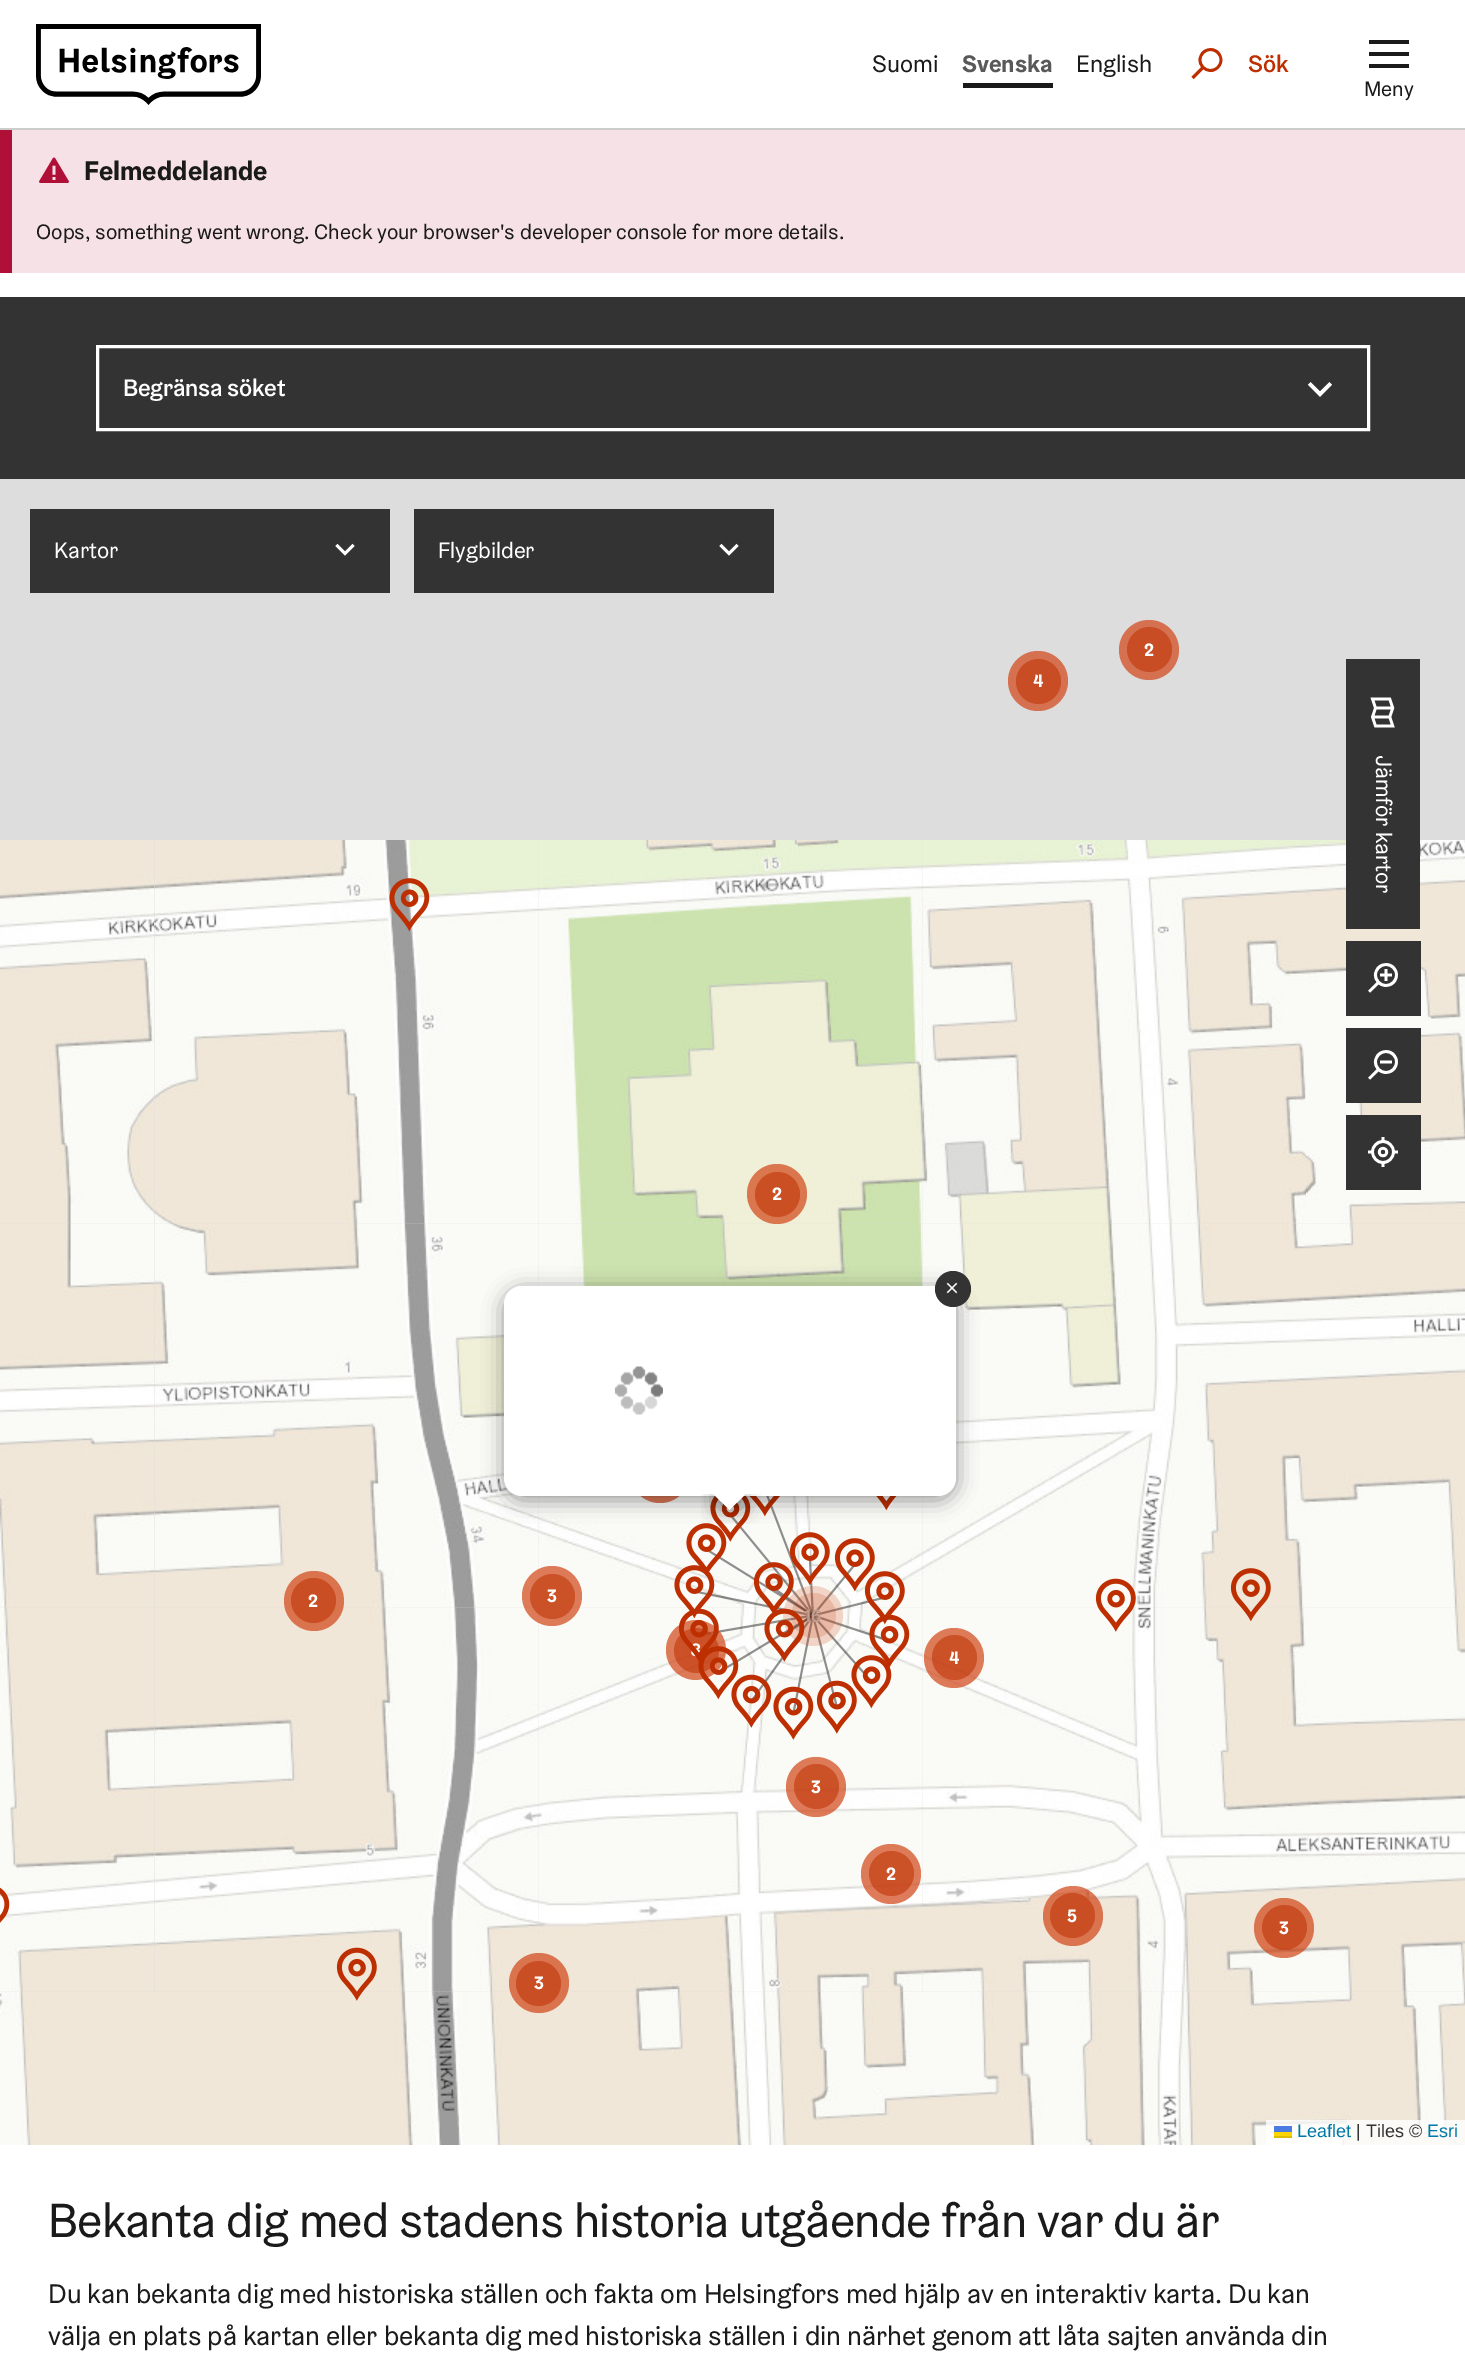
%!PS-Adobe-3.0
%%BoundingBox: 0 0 1465 2379
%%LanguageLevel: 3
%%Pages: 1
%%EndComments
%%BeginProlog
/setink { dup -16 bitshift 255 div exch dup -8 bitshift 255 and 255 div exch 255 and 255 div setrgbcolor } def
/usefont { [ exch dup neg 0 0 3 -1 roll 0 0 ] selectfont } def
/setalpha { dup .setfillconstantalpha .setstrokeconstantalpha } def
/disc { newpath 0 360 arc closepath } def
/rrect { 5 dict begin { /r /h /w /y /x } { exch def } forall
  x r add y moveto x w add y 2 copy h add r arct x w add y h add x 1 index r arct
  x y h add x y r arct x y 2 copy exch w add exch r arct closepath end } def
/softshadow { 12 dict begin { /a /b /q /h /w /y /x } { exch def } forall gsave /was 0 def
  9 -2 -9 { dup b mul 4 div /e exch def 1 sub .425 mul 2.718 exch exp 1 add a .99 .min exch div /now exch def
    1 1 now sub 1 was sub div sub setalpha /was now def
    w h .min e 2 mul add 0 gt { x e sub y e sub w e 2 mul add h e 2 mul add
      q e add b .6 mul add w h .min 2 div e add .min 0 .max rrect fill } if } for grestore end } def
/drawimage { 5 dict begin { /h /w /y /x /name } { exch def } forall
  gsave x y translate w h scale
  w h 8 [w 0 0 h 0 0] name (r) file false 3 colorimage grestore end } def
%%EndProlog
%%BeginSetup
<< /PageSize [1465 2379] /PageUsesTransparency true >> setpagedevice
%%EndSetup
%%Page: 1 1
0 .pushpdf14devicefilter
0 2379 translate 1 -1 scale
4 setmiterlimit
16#FFFFFF setink
0 0 1465 2379 rectfill
(img1.raw) 36 24 225 81 drawimage
/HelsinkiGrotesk-Regular 24 usefont
16#1A1A1A setink
872 72 moveto (Suomi) show
/HelsinkiGrotesk-Bold 24 usefont
16#595959 setink
962 72 moveto (Svenska) show
16#1A1A1A setink
963 83 90 5 rectfill
/HelsinkiGrotesk-Regular 24 usefont
1076 72 moveto (English) show
(img2.raw) 1191 48 32 32 drawimage
/HelsinkiGrotesk-Medium 24 usefont
16#BD2F00 setink
1248 72 moveto (Sök) show
(img3.raw) 1369 40 40 28 drawimage
/HelsinkiGrotesk-Regular 21 usefont
16#1A1A1A setink
1364 96 moveto (Meny) show
[
    [0 128 1465 2 16#CCCCCC]
    [12 130 1453 143 16#F6E2E6]
    [0 130 12 143 16#B01038]
] { aload pop setink rectfill } forall
(img4.raw) 39 157 30 26 drawimage
/HelsinkiGrotesk-Bold 27 usefont
16#1A1A1A setink
84 180 moveto (Felmeddelande) show
/HelsinkiGrotesk-Regular 21 usefont
36 239 moveto (Oops, something went wrong. Check your browser's developer console for more details.) show
16#333333 setink
0 297 1465 182 rectfill
16#FFFFFF setink
3 setlinewidth
97.5 346.5 1271 83 rectstroke
/HelsinkiGrotesk-Medium 24 usefont
123 396 moveto -0.25 0 (Begränsa söket) ashow
(img5.raw) 1307 382 25 15 drawimage
16#DDDDDD setink
0 479 1465 1513 rectfill
16#333333 setink
30 509 360 84 rectfill
/HelsinkiGrotesk-Regular 22.5 usefont
16#FFFFFF setink
54 558 moveto (Kartor) show
(img6.raw) 335 543 20 13 drawimage
16#333333 setink
414 509 360 84 rectfill
16#FFFFFF setink
438 558 moveto (Flygbilder) show
(img6.raw) 719 543 20 13 drawimage
(img35.raw) 538 840 385 384 drawimage
(img36.raw) 922 840 385 384 drawimage
(img37.raw) 1306 840 159 384 drawimage
16#333333 setink
1346 659 74 270 rectfill
(img7.raw) 1370 697 25 31 drawimage
16#FFFFFF setink
gsave 1376 755 translate 90 rotate 0 0 moveto (Jämför kartor) show grestore
16#333333 setink
1346 941 75 75 rectfill
(img8.raw) 1368 963 30 30 drawimage
1346 1028 75 75 rectfill
(img9.raw) 1368 1050 30 30 drawimage
1346 1115 75 75 rectfill
(img10.raw) 1368 1137 30 30 drawimage
16#D57150 setink
1149 650 30 disc fill
16#C84D24 setink
1149.5 649.5 22.5 disc fill
/HelsinkiGrotesk-Bold 18 usefont
16#FFFFFF setink
1144 656 moveto (2) show
16#D57150 setink
1038 681 30 disc fill
16#C84D24 setink
1038.5 681.5 22.5 disc fill
16#FFFFFF setink
1033 687 moveto (4) show
(img40.raw) 538 1224 385 385 drawimage
(img45.raw) 538 1608 385 384 drawimage
(img39.raw) 154 1224 385 385 drawimage
(img34.raw) 154 840 385 385 drawimage
(img11.raw) 389 878 41 54 drawimage
0.7 setalpha
16#D14314 setink
777 1194 30 disc fill
1 setalpha
16#CA4F23 setink
777.5 1194.5 22.5 disc fill
16#FFFFFF setink
772 1200 moveto (2) show
0.7 setalpha
16#D14314 setink
660 1473 30 disc fill
1 setalpha
(img54.raw) 697 1496 187 215 drawimage
(img13.raw) 749 1496 31 21 drawimage
(img12.raw) 710 1496 41 46 drawimage
(img14.raw) 876 1496 21 15 drawimage
(img15.raw) 686 1523 41 54 drawimage
(img17.raw) 789 1532 41 54 drawimage
0.21 setalpha
813 1616 30 disc fill
0.17 setalpha
16#BD2F00 setink
813.5 1615.5 22.5 disc fill
1 setalpha
(img16.raw) 753 1562 41 51 drawimage
(img18.raw) 834 1538 41 54 drawimage
(img44.raw) 154 1608 385 384 drawimage
0.7 setalpha
16#D14314 setink
314 1601 30 disc fill
1 setalpha
16#CA4E23 setink
313.5 1600.5 22.5 disc fill
16#FFFFFF setink
308 1607 moveto (2) show
0.7 setalpha
16#D14314 setink
552 1596 30 disc fill
0.55 setalpha
16#BD2F00 setink
552.5 1596.5 22.5 disc fill
1 setalpha
16#FFFFFF setink
547 1602 moveto (3) show
(img19.raw) 674 1565 41 54 drawimage
(img20.raw) 864 1571 41 54 drawimage
(img41.raw) 922 1224 385 385 drawimage
(img46.raw) 922 1607 385 385 drawimage
(img21.raw) 1095 1578 41 54 drawimage
(img22.raw) 1230 1568 41 54 drawimage
0.7 setalpha
16#D14314 setink
696 1650 30 disc fill
0.55 setalpha
16#BD2F00 setink
696.5 1650.5 22.5 disc fill
1 setalpha
(img23.raw) 678 1608 41 54 drawimage
16#BF9D91 setink
804 1622 moveto (16) show
(img24.raw) 764 1608 41 54 drawimage
(img25.raw) 869 1614 41 54 drawimage
(img26.raw) 698 1646 41 54 drawimage
(img27.raw) 731 1674 41 54 drawimage
(img28.raw) 773 1686 41 54 drawimage
(img30.raw) 851 1655 41 54 drawimage
(img29.raw) 816 1680 41 54 drawimage
0.7 setalpha
16#D14314 setink
954 1658 30 disc fill
0.55 setalpha
16#BD2F00 setink
954.5 1657.5 22.5 disc fill
1 setalpha
16#FFFFFF setink
949 1664 moveto (4) show
0.7 setalpha
16#D14314 setink
816 1787 30 disc fill
0.55 setalpha
16#BD2F00 setink
816.5 1786.5 22.5 disc fill
1 setalpha
16#FFFFFF setink
811 1793 moveto (3) show
0.7 setalpha
16#D14314 setink
891 1874 30 disc fill
0.55 setalpha
16#BD2F00 setink
891.5 1873.5 22.5 disc fill
1 setalpha
16#FFFFFF setink
886 1880 moveto (2) show
(img43.raw) 0 1608 154 384 drawimage
(img31.raw) 0 1887 10 36 drawimage
0.7 setalpha
16#D14314 setink
1073 1916 30 disc fill
0.55 setalpha
16#BD2F00 setink
1072.5 1915.5 22.5 disc fill
1 setalpha
16#FFFFFF setink
1067 1922 moveto (5) show
(img47.raw) 1306 1608 159 384 drawimage
0.7 setalpha
16#D14314 setink
1284 1928 30 disc fill
0.55 setalpha
16#BD2F00 setink
1284.5 1927.5 22.5 disc fill
1 setalpha
16#FFFFFF setink
1279 1934 moveto (3) show
(img49.raw) 154 1992 384 153 drawimage
(img32.raw) 336 1947 41 54 drawimage
(img50.raw) 538 1992 384 153 drawimage
0.7 setalpha
16#D14314 setink
539 1983 30 disc fill
1 setalpha
16#CA4E23 setink
538.5 1983.5 22.5 disc fill
16#FFFFFF setink
534 1989 moveto (3) show
(img33.raw) 0 840 154 384 drawimage
(img38.raw) 0 1224 154 384 drawimage
(img42.raw) 1306 1224 159 384 drawimage
(img48.raw) 0 1992 154 153 drawimage
(img51.raw) 922 1992 384 153 drawimage
(img52.raw) 1306 1992 159 153 drawimage
16#000000 setink
504 1290 452 210 18 10.5 0.4 softshadow
16#FFFFFF setink
504 1286 452 210 18 rrect fill
(img53.raw) 614 1366 49 49 drawimage
16#333333 setink
953 1289 18 disc fill
/LiberationSans-Regular 24 usefont
16#FFFFFF setink
945 1296 moveto (×) show
gsave
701 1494 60 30 rectclip
16#000000 setink
717 1484 26 25 0 10.5 0.4 softshadow
grestore
gsave
701 1494 60 30 rectclip
729.5 1474 moveto 747.5 1492 lineto 729.5 1510 lineto 711.5 1492 lineto closepath fill
grestore
0.8 setalpha
1266 2120 199 25 rectfill
/LiberationSans-Regular 18 usefont
1 setalpha
16#0078A8 setink
1297 2137 moveto (Leaflet) show
[
    [1274 2126 18 6 16#4C7BE1]
    [1274 2132 18 4 16#FFD500]
    [1274 2136 18 2 16#E0BC00]
] { aload pop setink rectfill } forall
16#333333 setink
1356 2137 moveto (| Tiles ©) show
16#0078A8 setink
1427 2137 moveto (Esri) show
/HelsinkiGrotesk-Regular 48 usefont
16#1A1A1A setink
48 2237 moveto -0.6 0 (Bekanta dig med stadens historia utgående från var du är) ashow
/HelsinkiGrotesk-Regular 27 usefont
48 2303 moveto (Du kan bekanta dig med historiska ställen och fakta om Helsingfors med hjälp av en interaktiv karta. Du kan) show
48 2345 moveto (välja en plats på kartan eller bekanta dig med historiska ställen i din närhet genom att låta sajten använda din) show
.poppdf14devicefilter showpage
%%EOF
